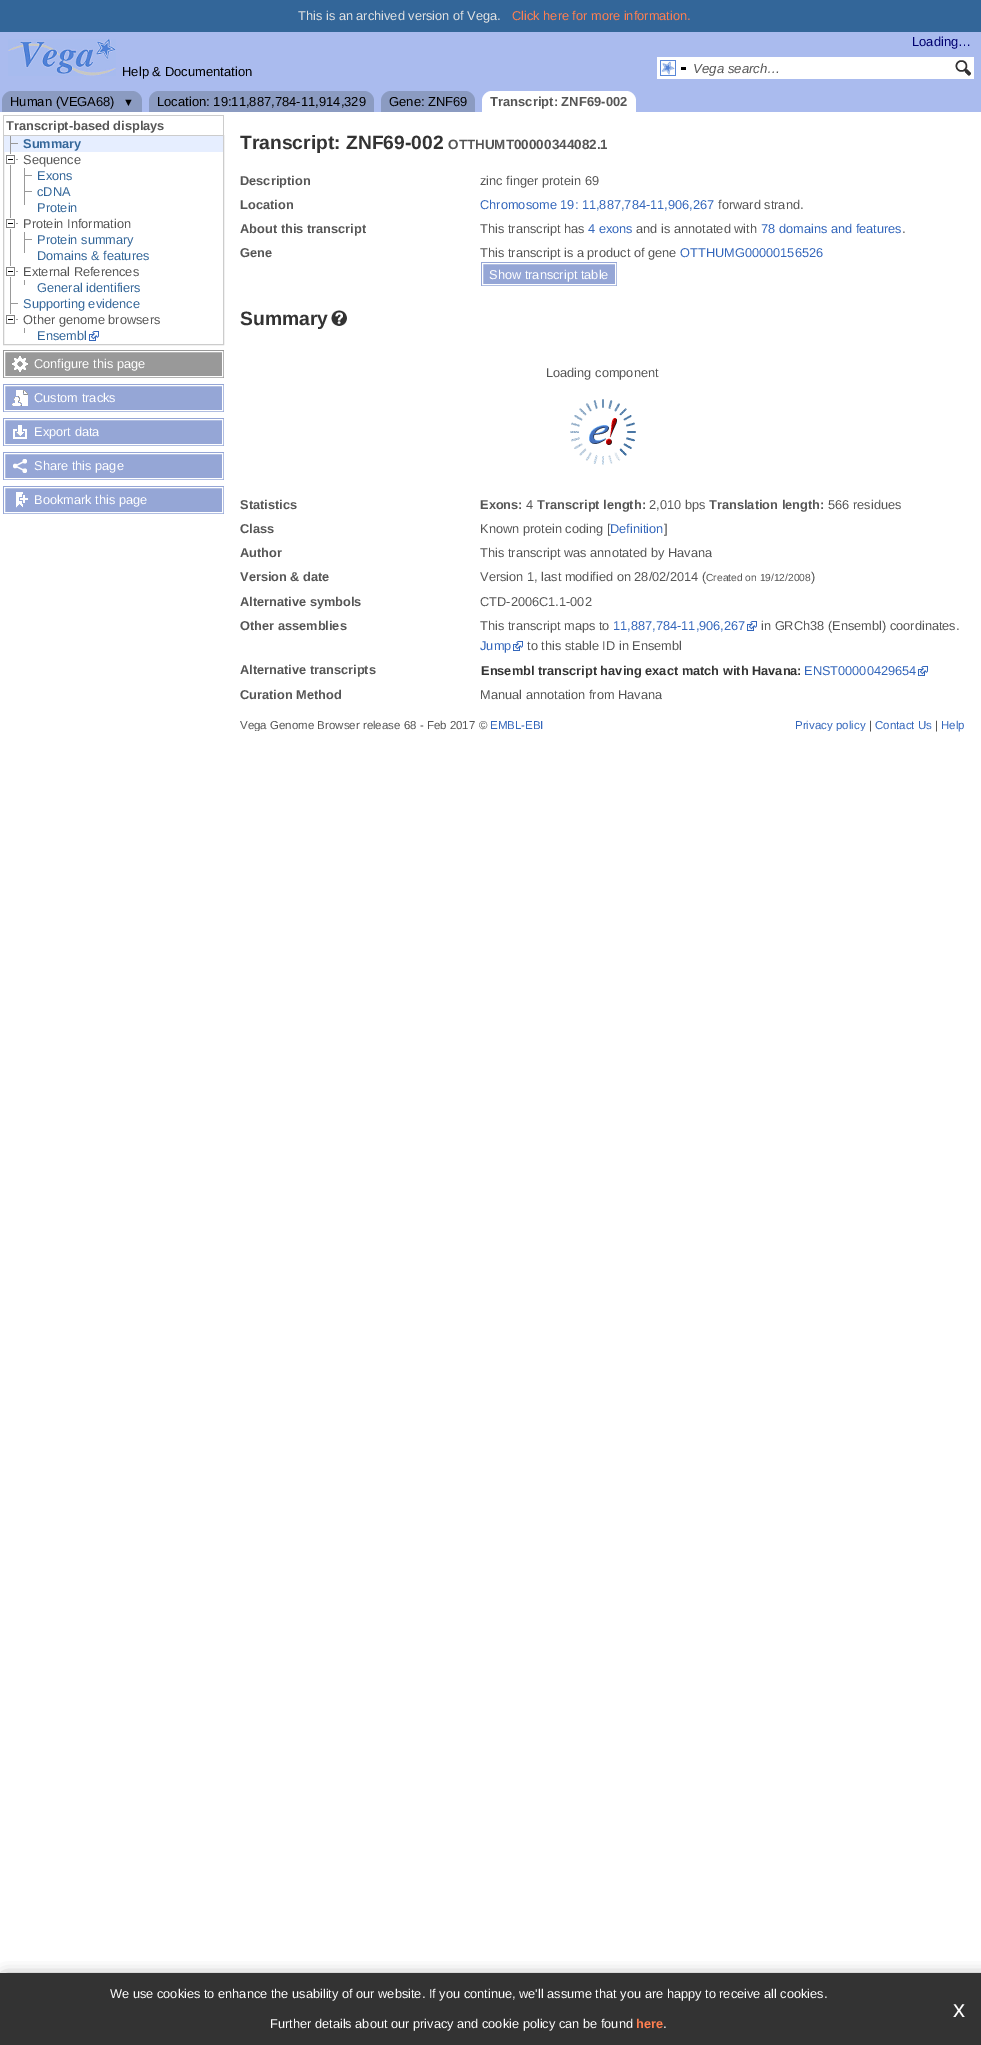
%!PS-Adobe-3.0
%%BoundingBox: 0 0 981 2045
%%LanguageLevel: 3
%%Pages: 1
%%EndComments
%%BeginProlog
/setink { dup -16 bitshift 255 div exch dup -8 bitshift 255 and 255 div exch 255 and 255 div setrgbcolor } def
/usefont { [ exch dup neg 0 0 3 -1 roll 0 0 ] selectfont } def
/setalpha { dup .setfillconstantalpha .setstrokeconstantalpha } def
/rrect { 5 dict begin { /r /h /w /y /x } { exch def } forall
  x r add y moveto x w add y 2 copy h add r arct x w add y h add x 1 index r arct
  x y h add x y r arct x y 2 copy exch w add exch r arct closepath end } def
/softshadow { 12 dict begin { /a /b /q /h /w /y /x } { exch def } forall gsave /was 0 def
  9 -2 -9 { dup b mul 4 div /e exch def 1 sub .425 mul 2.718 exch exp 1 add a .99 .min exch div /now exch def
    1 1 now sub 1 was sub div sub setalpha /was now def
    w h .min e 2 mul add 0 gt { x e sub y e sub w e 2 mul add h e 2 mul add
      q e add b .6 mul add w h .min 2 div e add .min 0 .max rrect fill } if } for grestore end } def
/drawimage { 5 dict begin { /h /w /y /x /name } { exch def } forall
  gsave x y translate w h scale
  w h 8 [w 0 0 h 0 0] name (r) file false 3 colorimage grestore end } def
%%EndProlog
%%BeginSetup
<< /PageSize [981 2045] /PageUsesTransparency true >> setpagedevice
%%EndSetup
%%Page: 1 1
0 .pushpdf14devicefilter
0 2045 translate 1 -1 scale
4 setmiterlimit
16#FFFFFF setink
0 0 981 2045 rectfill
16#336699 setink
0 0 981 32 rectfill
/LiberationSans-Regular 12.8 usefont
16#E2E2E2 setink
298 20 moveto (This is an archived version of Vega.) show
16#FF7F50 setink
512 20 moveto (Click here for more information.) show
16#AABBEE setink
0 32 981 80 rectfill
(img1.raw) 8 39 108 37 drawimage
/LiberationSans-Regular 13 usefont
16#000070 setink
912 46 moveto (Loading…) show
16#000000 setink
122 76 moveto (Help & Documentation) show
16#FFFFFF setink
657 57 317 22 rectfill
(img2.raw) 660 60 16 16 drawimage
16#000000 setink
681 67 5 3 rectfill
/LiberationSans-Italic 13.25 usefont
16#555555 setink
693 73 moveto (Vega search…) show
(img3.raw) 955 60 16 16 drawimage
16#8B9BC1 setink
12 91 moveto 132 91 lineto 137.5 91 142 95.5 142 101 curveto 142 112 lineto 2 112 lineto 2 101 lineto 2 95.5 6.5 91 12 91 curveto closepath fill
/LiberationSans-Regular 13 usefont
16#000000 setink
10 106 moveto (Human \(VEGA68\)) show
/LiberationSans-Regular 11 usefont
123 106 moveto (▼) show
16#8B9BC1 setink
159 91 moveto 364 91 lineto 369.5 91 374 95.5 374 101 curveto 374 112 lineto 149 112 lineto 149 101 lineto 149 95.5 153.5 91 159 91 curveto closepath fill
/LiberationSans-Regular 13 usefont
16#000000 setink
157 106 moveto (Location: 19:11,887,784-11,914,329) show
16#8B9BC1 setink
391 91 moveto 465 91 lineto 470.5 91 475 95.5 475 101 curveto 475 112 lineto 381 112 lineto 381 101 lineto 381 95.5 385.5 91 391 91 curveto closepath fill
16#000000 setink
389 106 moveto (Gene: ZNF69) show
16#FFFFFF setink
492 91 moveto 626 91 lineto 631.5 91 636 95.5 636 101 curveto 636 112 lineto 482 112 lineto 482 101 lineto 482 95.5 486.5 91 492 91 curveto closepath fill
/LiberationSans-Bold 13 usefont
16#555555 setink
490 106 moveto (Transcript: ZNF69-002) show
[
    [3 115 221 1 16#CCCCCC]
    [223 115 1 20 16#CCCCCC]
    [3 115 1 20 16#CCCCCC]
] { aload pop setink rectfill } forall
/LiberationSans-Bold 12.8 usefont
16#555555 setink
6 130 moveto (Transcript-based displays) show
16#CCCCCC setink
3.5 135.5 220 209 rectstroke
[
    [4 136 219 16 16#E6EEFF]
    [10 136 1 181 16#999999]
    [11 143 7 1 16#999999]
] { aload pop setink rectfill } forall
16#336699 setink
23 148 moveto (Summary) show
(img4.raw) 6 154 12 11 drawimage
/LiberationSans-Regular 12.8 usefont
16#555555 setink
23 164 moveto (Sequence) show
16#999999 setink
24 168 1 37 rectfill
25 175 7 1 rectfill
16#336699 setink
37 180 moveto (Exons) show
16#999999 setink
25 191 7 1 rectfill
16#336699 setink
37 196 moveto (cDNA) show
37 212 moveto (Protein) show
(img4.raw) 6 218 12 11 drawimage
16#555555 setink
23 228 moveto (Protein Information) show
16#999999 setink
24 232 1 21 rectfill
25 239 7 1 rectfill
16#336699 setink
37 244 moveto (Protein summary) show
37 260 moveto (Domains & features) show
(img4.raw) 6 266 12 11 drawimage
16#555555 setink
23 276 moveto (External References) show
16#999999 setink
24 280 1 5 rectfill
16#336699 setink
37 292 moveto (General identifiers) show
16#999999 setink
11 303 7 1 rectfill
16#336699 setink
23 308 moveto (Supporting evidence) show
(img5.raw) 6 314 12 10 drawimage
16#555555 setink
23 324 moveto (Other genome browsers) show
16#999999 setink
24 328 1 5 rectfill
16#336699 setink
37 340 moveto (Ensembl) show
(img6.raw) 89 331 10 10 drawimage
16#999999 setink
3 350 221 28 rectfill
(img7.raw) 12 356 16 16 drawimage
16#FFFFFF setink
4.5 351.5 218 25 rectstroke
34 368 moveto (Configure this page) show
16#95A6D6 setink
3 384 221 28 rectfill
(img8.raw) 12 390 16 16 drawimage
16#FFFFFF setink
4.5 385.5 218 25 rectstroke
34 402 moveto (Custom tracks) show
16#95A6D6 setink
3 418 221 28 rectfill
(img9.raw) 13 425 14 14 drawimage
16#FFFFFF setink
4.5 419.5 218 25 rectstroke
34 436 moveto (Export data) show
16#95A6D6 setink
3 452 221 28 rectfill
(img10.raw) 13 459 14 14 drawimage
16#FFFFFF setink
4.5 453.5 218 25 rectstroke
34 470 moveto (Share this page) show
16#95A6D6 setink
3 486 221 28 rectfill
(img11.raw) 16 492 12 16 drawimage
16#FFFFFF setink
4.5 487.5 218 25 rectstroke
34 504 moveto (Bookmark this page) show
/LiberationSans-Bold 19.25 usefont
16#333333 setink
240 149 moveto (Transcript: ZNF69-002) show
/LiberationSans-Bold 13.5 usefont
16#555555 setink
448 149 moveto (OTTHUMT00000344082.1) show
/LiberationSans-Bold 12.8 usefont
240 185 moveto (Description) show
/LiberationSans-Regular 12.8 usefont
480 185 moveto (zinc finger protein 69) show
/LiberationSans-Bold 12.8 usefont
240 209 moveto (Location) show
/LiberationSans-Regular 12.8 usefont
16#3366BB setink
480 209 moveto (Chromosome 19: 11,887,784-11,906,267) show
16#555555 setink
718 209 moveto (forward strand.) show
/LiberationSans-Bold 12.8 usefont
240 233 moveto (About this transcript) show
/LiberationSans-Regular 12.8 usefont
480 233 moveto (This transcript has) show
16#3366BB setink
588 233 moveto (4 exons) show
16#555555 setink
636 233 moveto (and is annotated with) show
16#3366BB setink
761 233 moveto (78 domains and features) show
16#555555 setink
902 233 moveto (.) show
/LiberationSans-Bold 12.8 usefont
240 257 moveto (Gene) show
/LiberationSans-Regular 12.8 usefont
480 257 moveto (This transcript is a product of gene) show
16#3366BB setink
680 257 moveto (OTTHUMG00000156526) show
16#95A6D6 setink
481 262 136 24 rectfill
16#FFFFFF setink
482.5 263.5 133 21 rectstroke
489 279 moveto (Show transcript table) show
/LiberationSans-Bold 19.25 usefont
16#333333 setink
240 325 moveto (Summary) show
(img12.raw) 331 310 16 16 drawimage
(img13.raw) 570 399 66 66 drawimage
/LiberationSans-Regular 12.8 usefont
16#555555 setink
546 377 moveto (Loading component) show
/LiberationSans-Bold 12.8 usefont
240 509 moveto (Statistics) show
480 509 moveto (Exons:) show
/LiberationSans-Regular 12.8 usefont
526 509 moveto (4) show
/LiberationSans-Bold 12.8 usefont
537 509 moveto (Transcript length:) show
/LiberationSans-Regular 12.8 usefont
649 509 moveto (2,010 bps) show
/LiberationSans-Bold 12.8 usefont
709 509 moveto (Translation length:) show
/LiberationSans-Regular 12.8 usefont
828 509 moveto (566 residues) show
/LiberationSans-Bold 12.8 usefont
240 533 moveto (Class) show
/LiberationSans-Regular 12.8 usefont
480 533 moveto (Known protein coding [) show
16#3366BB setink
610 533 moveto (Definition) show
16#555555 setink
664 533 moveto (]) show
/LiberationSans-Bold 12.8 usefont
240 557 moveto (Author) show
/LiberationSans-Regular 12.8 usefont
480 557 moveto (This transcript was annotated by Havana) show
/LiberationSans-Bold 12.8 usefont
240 581 moveto (Version & date) show
/LiberationSans-Regular 12.8 usefont
480 581 moveto (Version 1, last modified on 28/02/2014 \() show
/LiberationSans-Regular 10.25 usefont
706 581 moveto (Created on 19/12/2008) show
/LiberationSans-Regular 12.8 usefont
811 581 moveto (\)) show
/LiberationSans-Bold 12.8 usefont
240 606 moveto (Alternative symbols) show
/LiberationSans-Regular 12.8 usefont
480 606 moveto (CTD-2006C1.1-002) show
/LiberationSans-Bold 12.8 usefont
240 630 moveto (Other assemblies) show
/LiberationSans-Regular 12.8 usefont
480 630 moveto (This transcript maps to) show
16#3366BB setink
613 630 moveto (11,887,784-11,906,267) show
(img6.raw) 747 621 10 10 drawimage
16#555555 setink
761 630 moveto (in GRCh38 \(Ensembl\) coordinates.) show
16#3366BB setink
480 650 moveto (Jump) show
(img6.raw) 513 641 10 10 drawimage
16#555555 setink
527 650 moveto (to this stable ID in Ensembl) show
/LiberationSans-Bold 12.8 usefont
240 674 moveto (Alternative transcripts) show
16#333333 setink
481 675 moveto (Ensembl transcript having exact match with Havana:) show
/LiberationSans-Regular 12.8 usefont
16#3366BB setink
804 675 moveto (ENST00000429654) show
(img6.raw) 918 666 10 10 drawimage
/LiberationSans-Bold 12.8 usefont
16#555555 setink
240 699 moveto (Curation Method) show
/LiberationSans-Regular 12.8 usefont
480 699 moveto (Manual annotation from Havana) show
gsave
240 719 725 12 rectclip
/LiberationSans-Regular 11.5 usefont
240 729 moveto (Vega Genome Browser release 68 - Feb 2017) show
grestore
/LiberationSans-Regular 11.5 usefont
479 729 moveto (©) show
16#3366BB setink
490 729 moveto (EMBL-EBI) show
gsave
240 719 725 12 rectclip
795 729 moveto (Privacy policy) show
grestore
16#555555 setink
869 729 moveto (|) show
16#3366BB setink
875 729 moveto (Contact Us) show
16#555555 setink
935 729 moveto (|) show
16#3366BB setink
941 729 moveto (Help) show
16#666666 setink
5 1978 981 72 0 7.5 1 softshadow
16#333333 setink
0 1973 981 72 rectfill
/LiberationSans-Regular 12.8 usefont
16#FFFFFF setink
110 1998 moveto (We use cookies to enhance the usability of our website. If you continue, we'll assume that you are happy to receive all cookies.) show
270 2028 moveto (Further details about our privacy and cookie policy can be found) show
/LiberationSans-Bold 12.8 usefont
16#FF7F50 setink
636 2028 moveto (here) show
/LiberationSans-Regular 12.8 usefont
16#FFFFFF setink
663 2028 moveto (.) show
/LiberationSans-Regular 24 usefont
953 2017 moveto (x) show
.poppdf14devicefilter showpage
%%EOF
